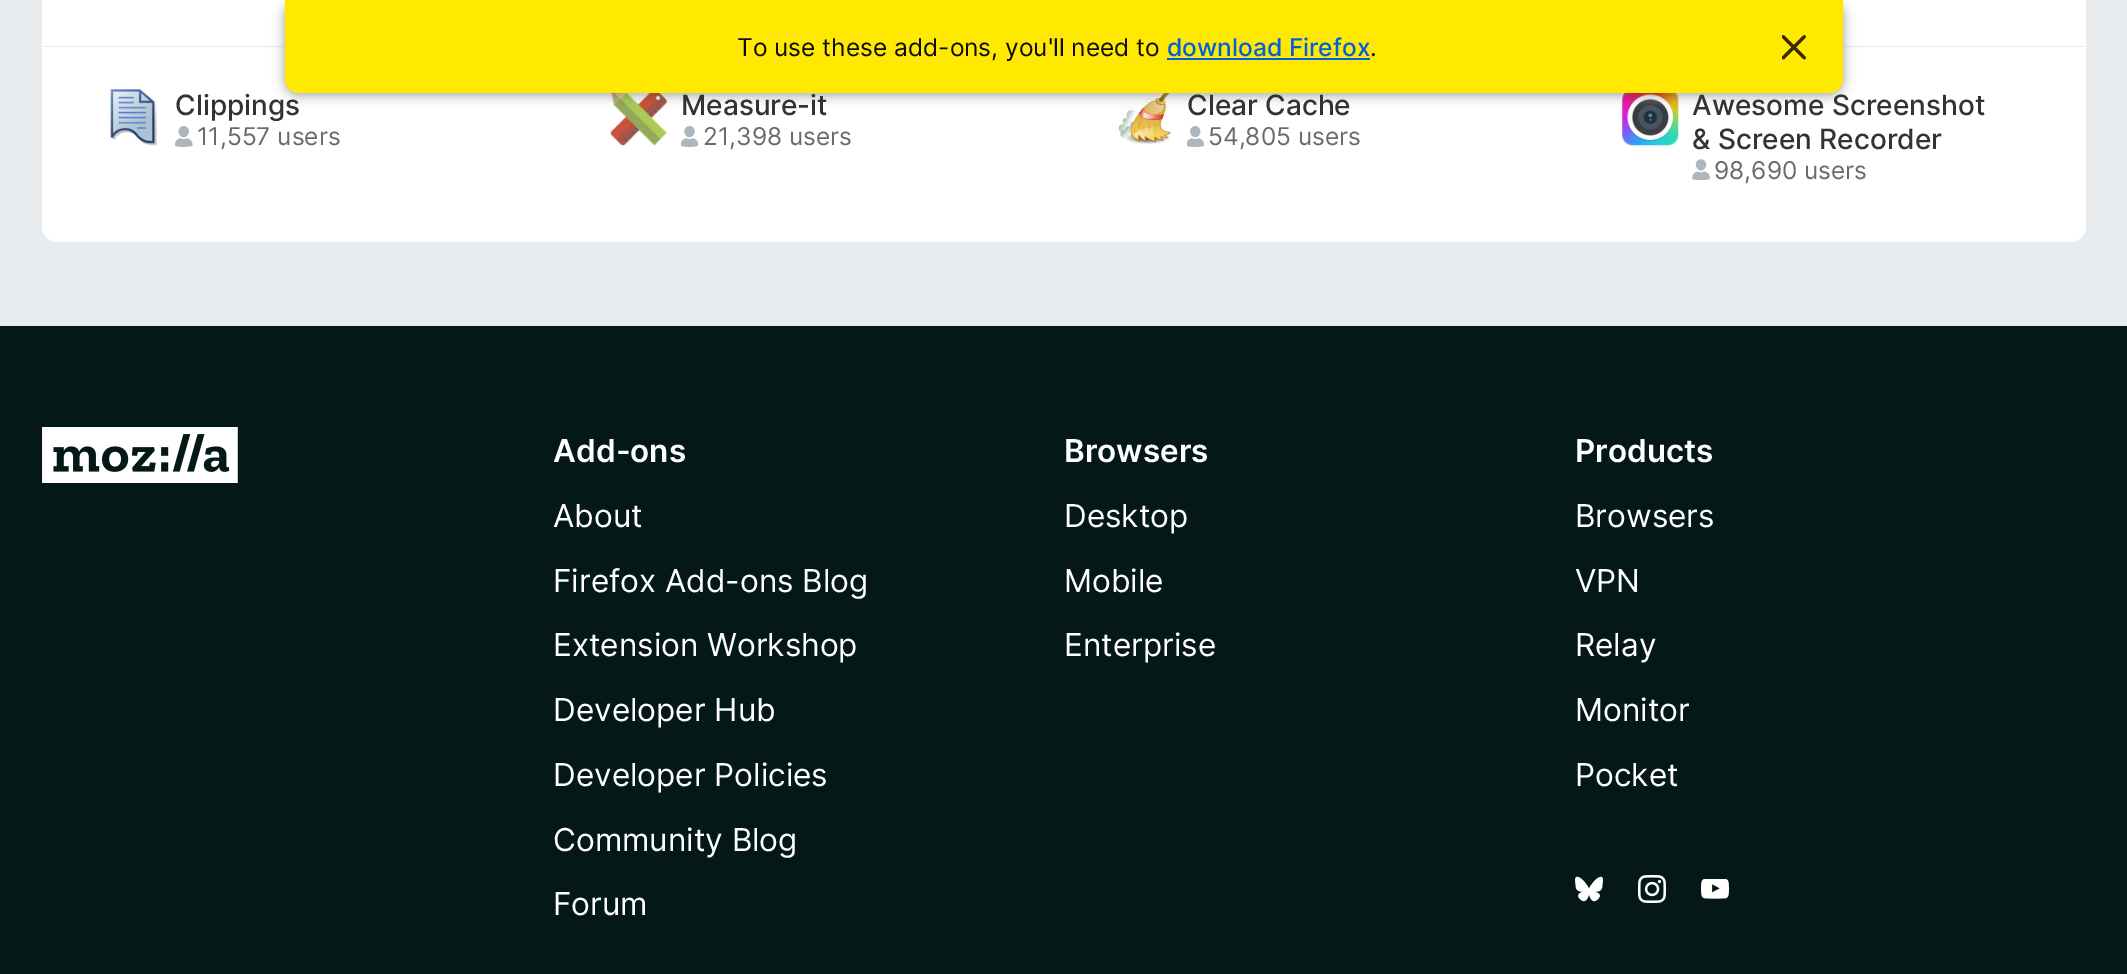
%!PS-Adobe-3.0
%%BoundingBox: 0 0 2127 974
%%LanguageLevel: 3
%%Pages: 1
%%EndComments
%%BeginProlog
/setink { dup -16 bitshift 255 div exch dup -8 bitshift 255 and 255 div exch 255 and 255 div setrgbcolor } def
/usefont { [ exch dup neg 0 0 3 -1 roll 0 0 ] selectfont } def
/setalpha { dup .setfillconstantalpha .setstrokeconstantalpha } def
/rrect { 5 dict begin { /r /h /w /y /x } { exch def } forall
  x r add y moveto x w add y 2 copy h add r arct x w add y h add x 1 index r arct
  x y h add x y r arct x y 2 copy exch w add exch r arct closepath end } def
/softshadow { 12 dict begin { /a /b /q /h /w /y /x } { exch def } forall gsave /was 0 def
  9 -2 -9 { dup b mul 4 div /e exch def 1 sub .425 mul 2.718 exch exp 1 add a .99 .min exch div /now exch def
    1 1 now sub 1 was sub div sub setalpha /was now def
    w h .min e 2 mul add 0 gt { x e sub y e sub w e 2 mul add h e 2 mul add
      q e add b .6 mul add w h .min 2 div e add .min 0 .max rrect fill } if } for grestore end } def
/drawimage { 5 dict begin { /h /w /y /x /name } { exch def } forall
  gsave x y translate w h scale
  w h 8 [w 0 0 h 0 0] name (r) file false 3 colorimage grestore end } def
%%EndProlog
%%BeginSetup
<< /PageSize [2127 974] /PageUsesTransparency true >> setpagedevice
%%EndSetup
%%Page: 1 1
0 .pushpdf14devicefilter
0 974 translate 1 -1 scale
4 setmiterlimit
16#E9ECEF setink
0 0 2127 974 rectfill
16#FFFFFF setink
42 0 2044 46 rectfill
42 47 moveto 2086 47 lineto 2086 226 lineto 2086 235 2079 242 2070 242 curveto 58 242 lineto 49 242 42 235 42 226 curveto closepath fill
(img4.raw) 610 93 57 53 drawimage
(img6.raw) 1118 93 54 51 drawimage
(img8.raw) 1622 93 57 53 drawimage
16#343A40 setink
285 2 1558 93 14 6 0.5 softshadow
16#FFE900 setink
285 0 moveto 1843 0 lineto 1843 79 lineto 1843 86.5 1836.5 93 1829 93 curveto 299 93 lineto 291.5 93 285 86.5 285 79 curveto closepath fill
/Inter-Regular 24.5 usefont
16#0C0C0D setink
737 56 moveto (To use these add-ons, you'll need to) show
/Inter-Medium 24.5 usefont
16#0060DF setink
1167 56 moveto (download Firefox) show
/Inter-Regular 24.5 usefont
16#0C0C0D setink
1370 56 moveto (.) show
16#0060DF setink
1167 58 203 2 rectfill
(img1.raw) 1782 35 24 25 drawimage
(img2.raw) 110 89 47 57 drawimage
/Inter-Medium 28 usefont
16#333333 setink
175 115 moveto (Clippings) show
(img3.raw) 175 126 18 21 drawimage
/Inter-Regular 24.5 usefont
16#6A6A6A setink
197 145 moveto (11,557 users) show
/Inter-Medium 28 usefont
16#333333 setink
681 115 moveto (Measure-it) show
(img5.raw) 681 126 17 21 drawimage
/Inter-Regular 24.5 usefont
16#6A6A6A setink
703 145 moveto (21,398 users) show
/Inter-Medium 28 usefont
16#333333 setink
1187 115 moveto (Clear Cache) show
(img7.raw) 1187 126 17 21 drawimage
/Inter-Regular 24.5 usefont
16#6A6A6A setink
1208 145 moveto (54,805 users) show
/Inter-Medium 28 usefont
16#333333 setink
1692 115 moveto (Awesome Screenshot) show
1692 149 moveto (& Screen Recorder) show
(img9.raw) 1692 159 18 21 drawimage
/Inter-Regular 24.5 usefont
16#6A6A6A setink
1714 179 moveto (98,690 users) show
16#051818 setink
0 326 2127 648 rectfill
(img10.raw) 42 427 196 56 drawimage
/Inter-SemiBold 31.5 usefont
16#FFFFFF setink
553 462 moveto (Add-ons) show
/Inter-Regular 31.5 usefont
[
    [(About) 553 527]
    [(Firefox Add-ons Blog) 553 592]
    [(Extension Workshop) 553 656]
    [(Developer Hub) 553 721]
    [(Developer Policies) 553 786]
    [(Community Blog) 553 851]
    [(Forum) 553 915]
] { aload pop moveto show } forall
/Inter-SemiBold 31.5 usefont
1064 462 moveto (Browsers) show
/Inter-Regular 31.5 usefont
[
    [(Desktop) 1064 527]
    [(Mobile) 1064 592]
    [(Enterprise) 1064 656]
] { aload pop moveto show } forall
/Inter-SemiBold 31.5 usefont
1575 462 moveto (Products) show
/Inter-Regular 31.5 usefont
[
    [(Browsers) 1575 527]
    [(VPN) 1575 592]
    [(Relay) 1575 656]
    [(Monitor) 1575 721]
    [(Pocket) 1575 786]
] { aload pop moveto show } forall
(img11.raw) 1575 876 28 26 drawimage
(img12.raw) 1638 875 28 28 drawimage
(img13.raw) 1701 879 28 20 drawimage
.poppdf14devicefilter showpage
%%EOF
